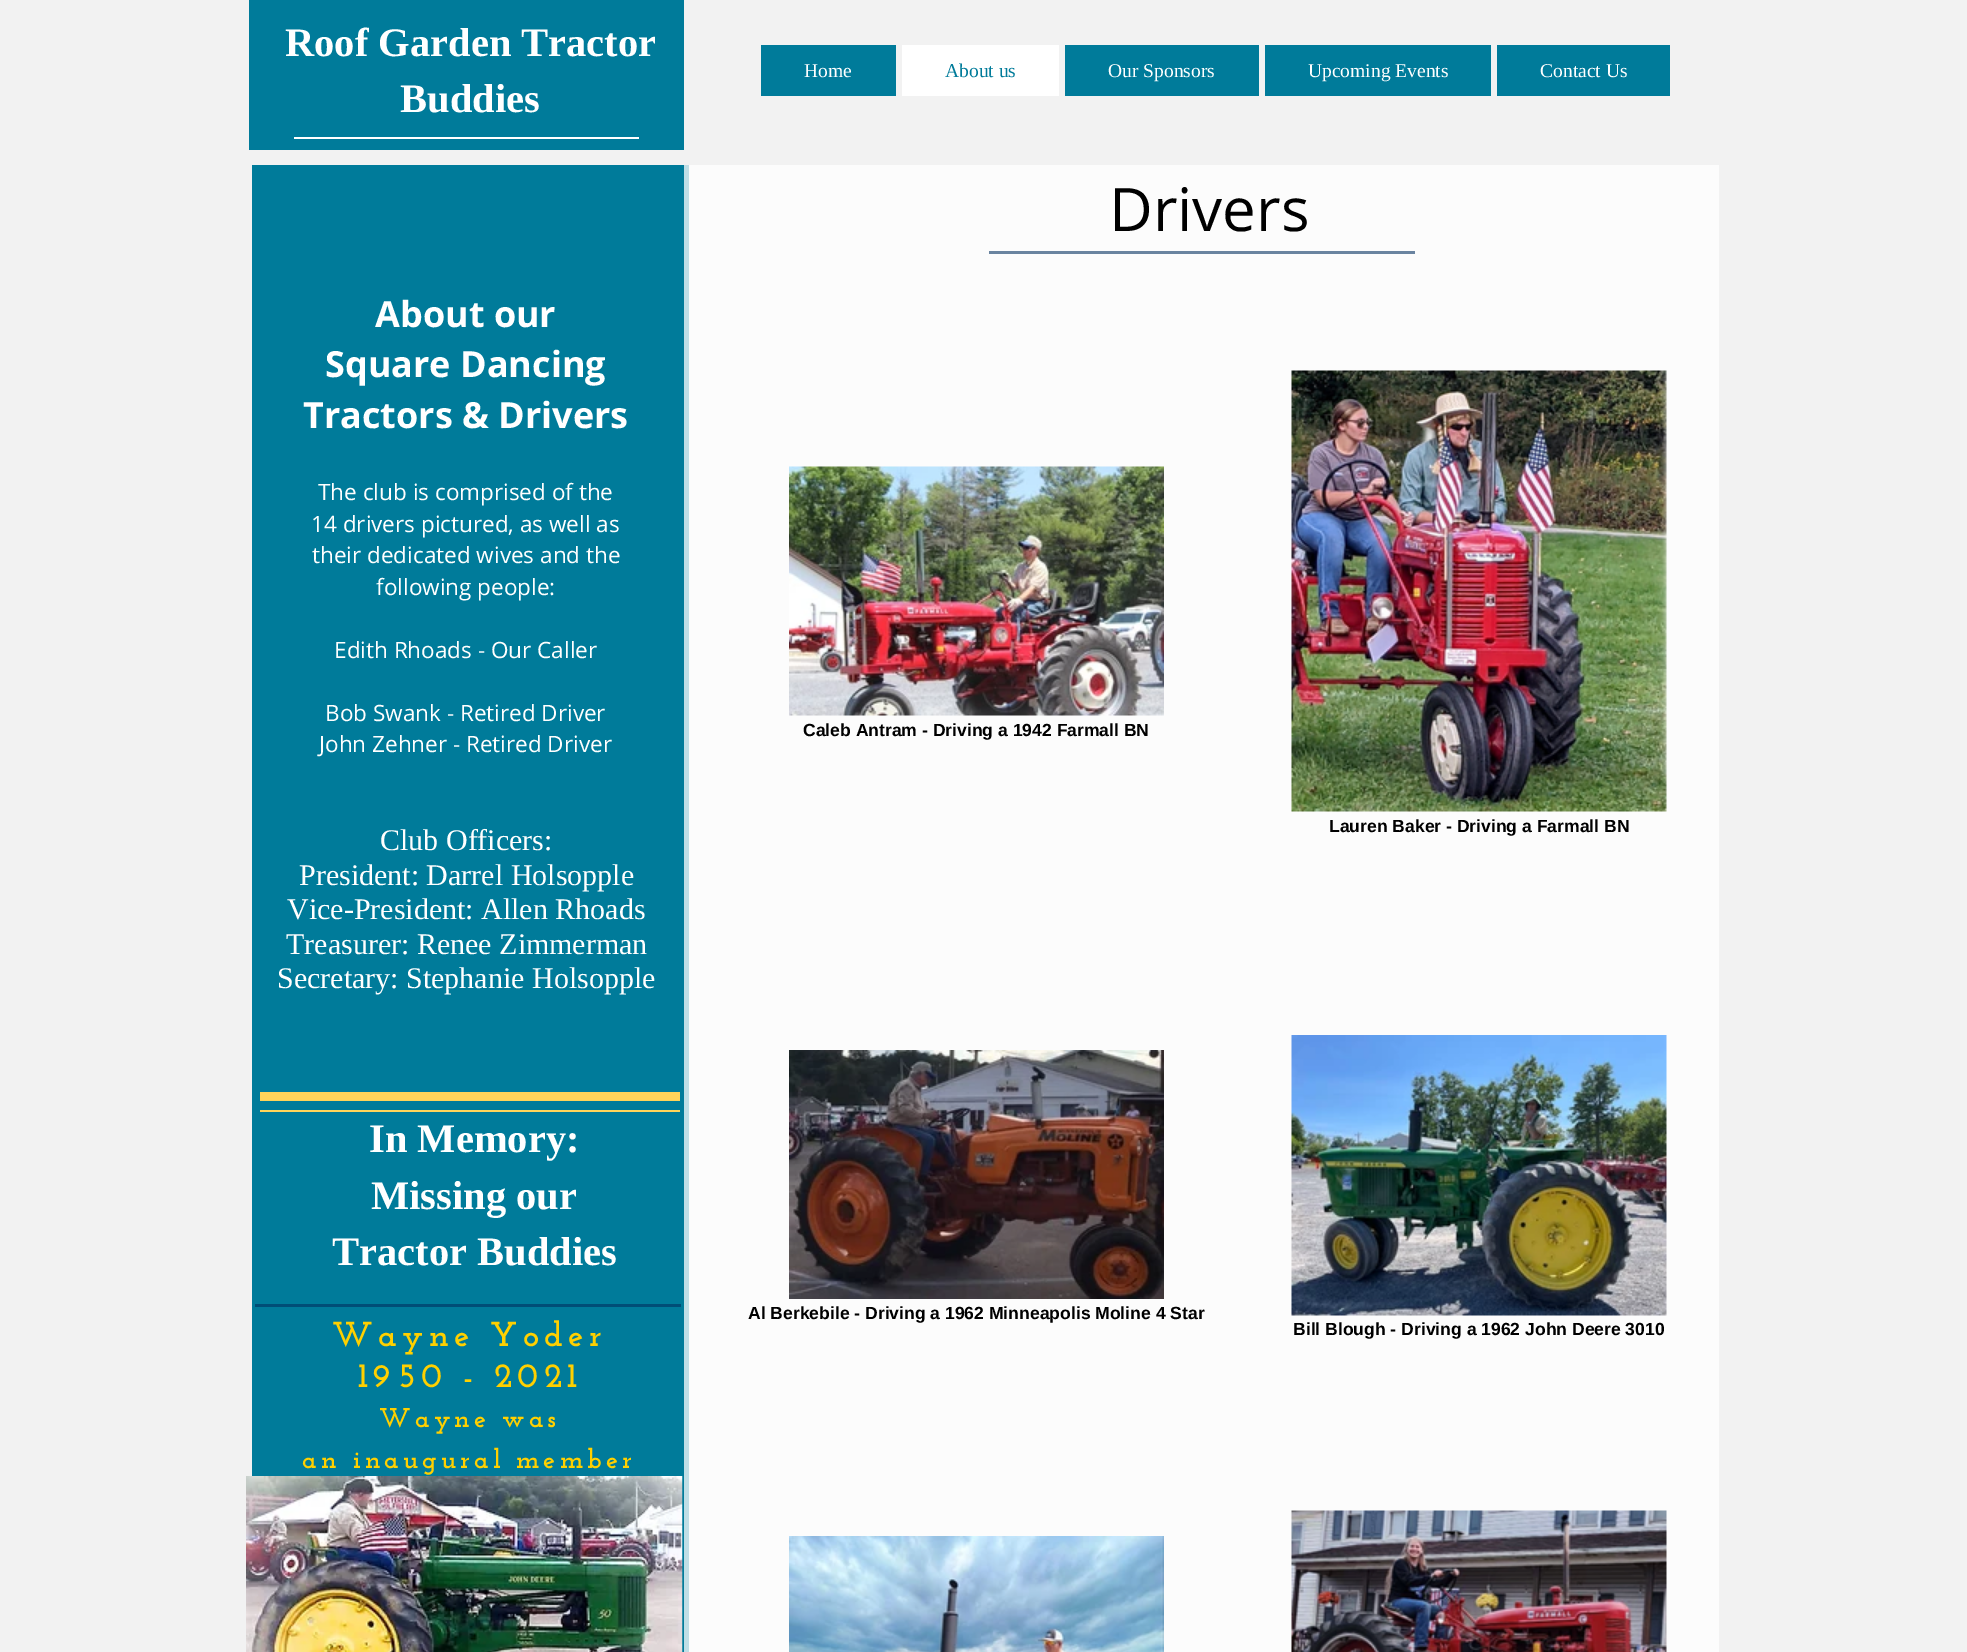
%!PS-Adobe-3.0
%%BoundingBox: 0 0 1967 1652
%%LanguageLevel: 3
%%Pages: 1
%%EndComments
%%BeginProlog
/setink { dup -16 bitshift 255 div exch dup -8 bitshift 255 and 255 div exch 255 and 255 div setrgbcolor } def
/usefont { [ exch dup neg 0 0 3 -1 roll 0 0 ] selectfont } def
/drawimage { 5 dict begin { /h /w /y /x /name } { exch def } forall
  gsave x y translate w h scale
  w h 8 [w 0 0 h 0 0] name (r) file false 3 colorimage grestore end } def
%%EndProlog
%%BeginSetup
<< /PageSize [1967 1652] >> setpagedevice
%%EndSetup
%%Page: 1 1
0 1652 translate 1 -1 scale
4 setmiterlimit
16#F2F2F2 setink
0 0 1967 1652 rectfill
16#007B9A setink
249 0 435 150 rectfill
/LiberationSerif-Bold 40.5 usefont
16#FFFFFF setink
285 56 moveto (Roof Garden Tractor) show
400 112 moveto (Buddies) show
294 137 345 2 rectfill
16#007B9A setink
761 45 135 51 rectfill
/LiberationSerif-Regular 19.5 usefont
16#FFFFFF setink
804 77 moveto (Home) show
902 45 157 51 rectfill
16#007B9A setink
945 77 moveto (About us) show
1065 45 194 51 rectfill
16#FFFFFF setink
1108 77 moveto (Our Sponsors) show
16#007B9A setink
1265 45 226 51 rectfill
16#FFFFFF setink
1308 77 moveto (Upcoming Events) show
16#007B9A setink
1497 45 173 51 rectfill
16#FFFFFF setink
1540 77 moveto (Contact Us) show
16#007B9A setink
252 165 432 1487 rectfill
16#BFDEE6 setink
684 165 5 1487 rectfill
/OpenSans-Bold 36 usefont
16#FFFFFF setink
[
    [(About our) 375 327]
    [(Square Dancing) 325 377]
    [(Tractors & Drivers) 303 428]
] { aload pop moveto show } forall
/OpenSans-Regular 22.5 usefont
[
    [(The club is comprised of the) 318 500]
    [(14 drivers pictured, as well as) 311 532]
    [(their dedicated wives and the) 312 563]
    [(following people:) 376 595]
    [(Edith Rhoads - Our Caller) 334 658]
    [(Bob Swank - Retired Driver) 325 721]
    [(John Zehner - Retired Driver) 319 752]
] { aload pop moveto show } forall
/LiberationSerif-Regular 30 usefont
[
    [(Club Officers:) 380 850]
    [(President: Darrel Holsopple) 299 885]
    [(Vice-President: Allen Rhoads) 287 919]
    [(Treasurer: Renee Zimmerman) 286 954]
    [(Secretary: Stephanie Holsopple) 277 988]
] { aload pop moveto show } forall
16#FFD45A setink
260 1092 420 9 rectfill
260 1110 420 2 rectfill
/LiberationSerif-Bold 40.5 usefont
16#FFFFFF setink
[
    [(In Memory:) 369 1152]
    [(Missing our) 371 1209]
    [(Tractor Buddies) 332 1265]
] { aload pop moveto show } forall
16#004E77 setink
255 1304 426 3 rectfill
/JosefinSlab-Bold 34.5 usefont
16#FFD000 setink
332 1346 moveto 5.25 0 (Wayne Yoder) ashow
358 1387 moveto 5.25 0 (1950 - 2021) ashow
/JosefinSlab-Bold 27 usefont
379 1427 moveto 4 0 (Wayne was) ashow
302 1468 moveto 4 0 (an) ashow
353 1468 moveto 3.9 0 (inaugural) ashow
516 1468 moveto 4 0 (member) ashow
16#FCFCFC setink
689 165 1030 1487 rectfill
/OpenSans-Regular 60 usefont
16#000000 setink
1109 231 moveto (Drivers) show
16#6A84A0 setink
989 251 426 3 rectfill
(img1.raw) 789 466 375 250 drawimage
/LiberationSans-Bold 17.55 usefont
16#000000 setink
803 736 moveto (Caleb Antram - Driving a 1942 Farmall BN) show
(img2.raw) 1291 370 376 442 drawimage
1329 832 moveto (Lauren Baker - Driving a Farmall BN) show
(img3.raw) 789 1050 375 249 drawimage
748 1319 moveto (Al Berkebile - Driving a 1962 Minneapolis Moline 4 Star) show
(img4.raw) 1291 1035 376 281 drawimage
1293 1335 moveto (Bill Blough - Driving a 1962 John Deere 3010) show
(img5.raw) 789 1536 375 116 drawimage
(img6.raw) 1291 1510 376 142 drawimage
(img7.raw) 246 1476 437 176 drawimage
showpage
%%EOF
